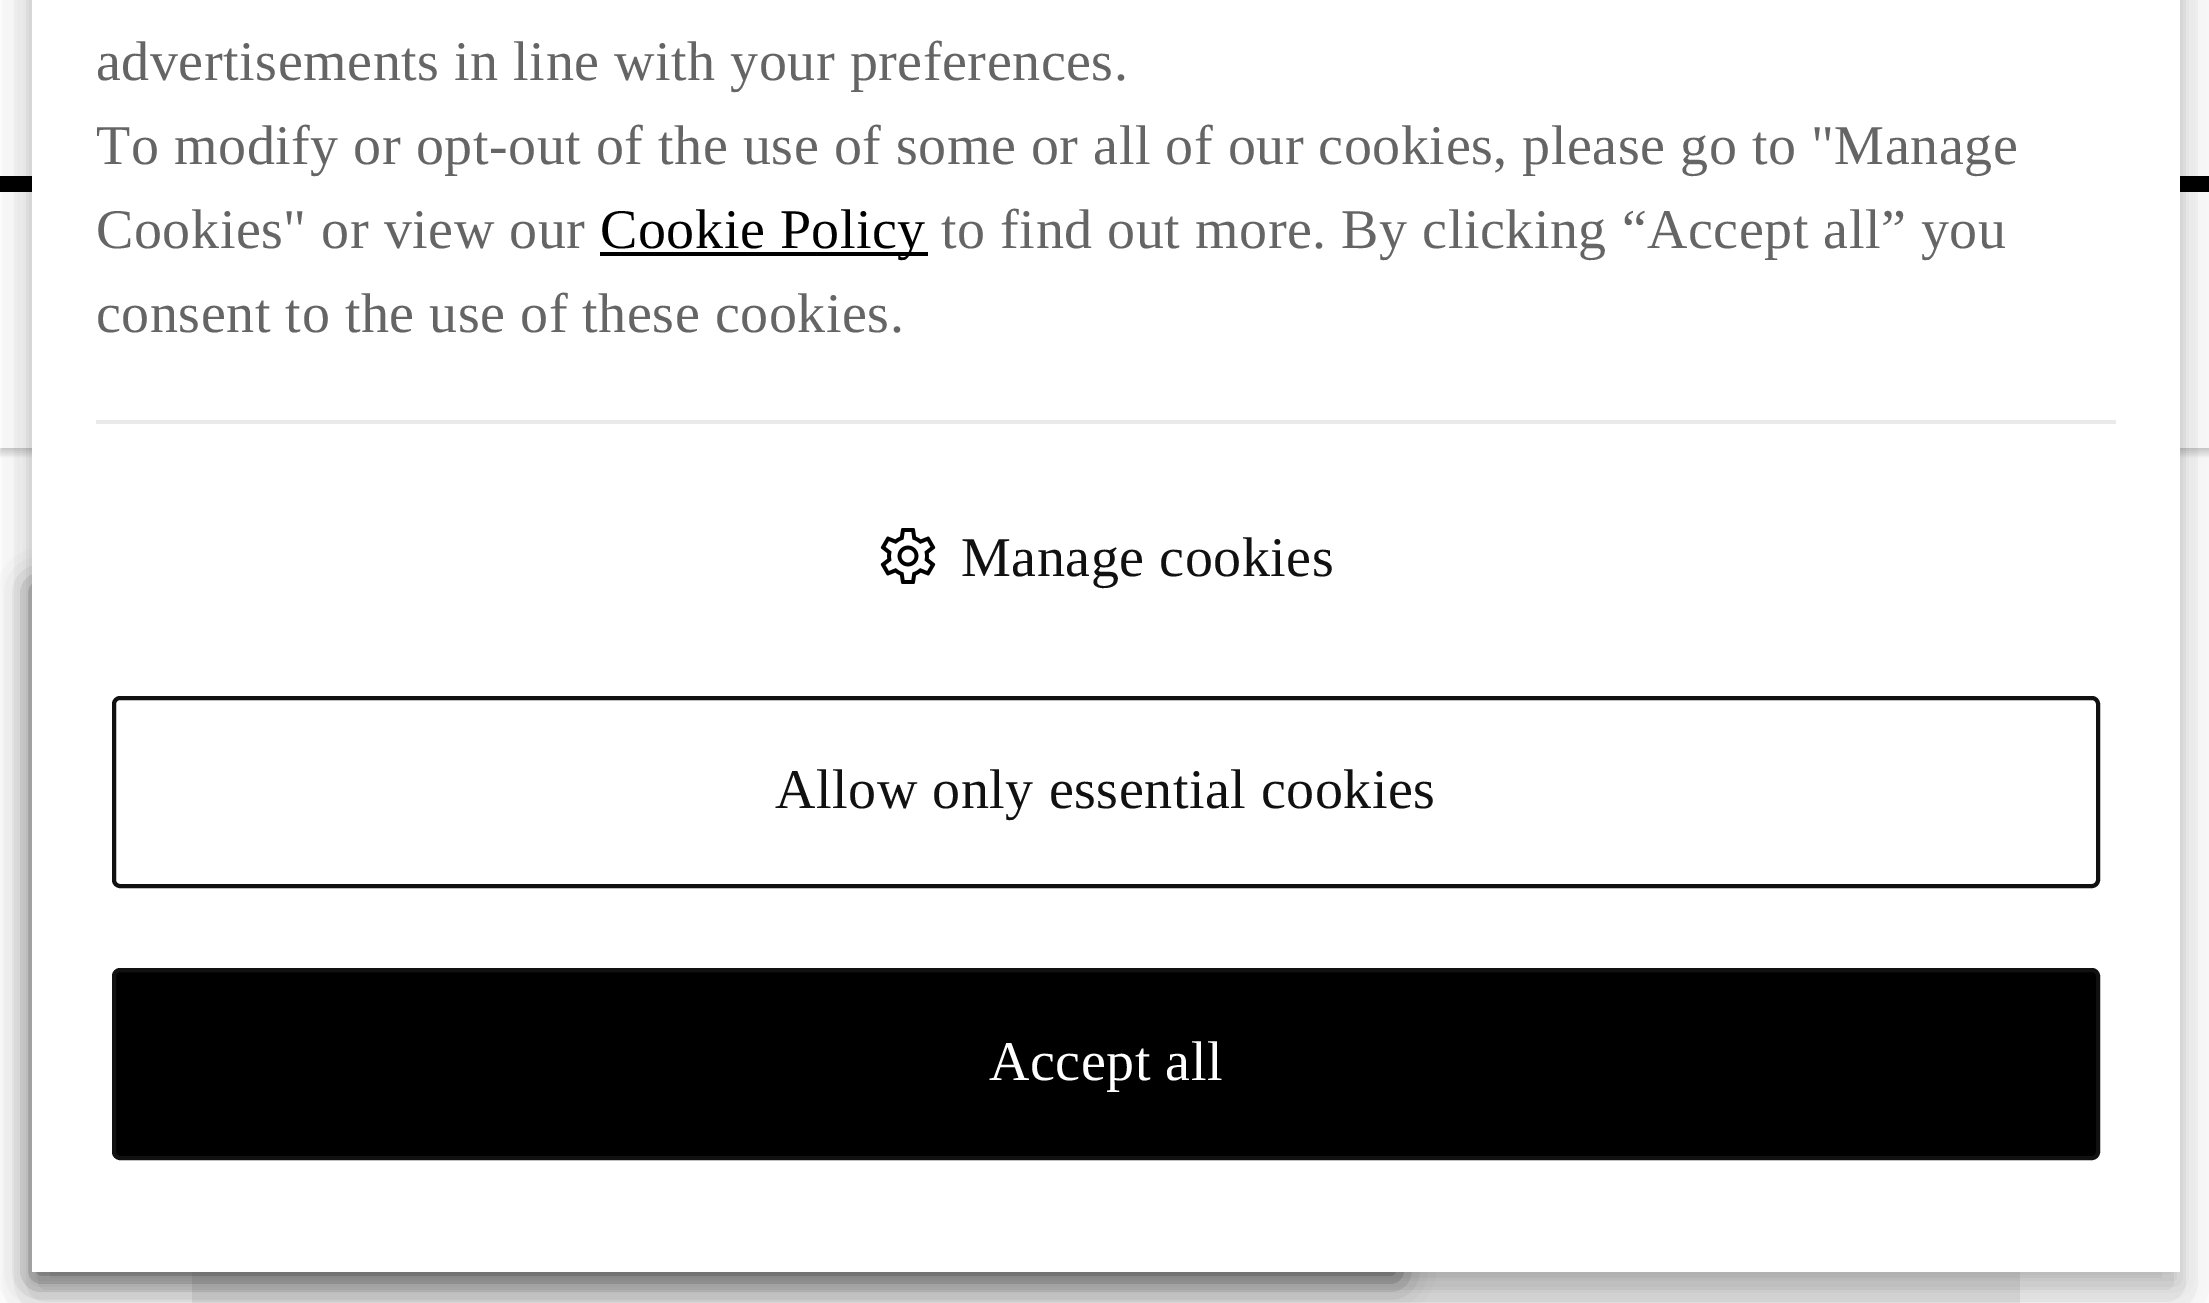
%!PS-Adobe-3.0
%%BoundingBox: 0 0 2209 1303
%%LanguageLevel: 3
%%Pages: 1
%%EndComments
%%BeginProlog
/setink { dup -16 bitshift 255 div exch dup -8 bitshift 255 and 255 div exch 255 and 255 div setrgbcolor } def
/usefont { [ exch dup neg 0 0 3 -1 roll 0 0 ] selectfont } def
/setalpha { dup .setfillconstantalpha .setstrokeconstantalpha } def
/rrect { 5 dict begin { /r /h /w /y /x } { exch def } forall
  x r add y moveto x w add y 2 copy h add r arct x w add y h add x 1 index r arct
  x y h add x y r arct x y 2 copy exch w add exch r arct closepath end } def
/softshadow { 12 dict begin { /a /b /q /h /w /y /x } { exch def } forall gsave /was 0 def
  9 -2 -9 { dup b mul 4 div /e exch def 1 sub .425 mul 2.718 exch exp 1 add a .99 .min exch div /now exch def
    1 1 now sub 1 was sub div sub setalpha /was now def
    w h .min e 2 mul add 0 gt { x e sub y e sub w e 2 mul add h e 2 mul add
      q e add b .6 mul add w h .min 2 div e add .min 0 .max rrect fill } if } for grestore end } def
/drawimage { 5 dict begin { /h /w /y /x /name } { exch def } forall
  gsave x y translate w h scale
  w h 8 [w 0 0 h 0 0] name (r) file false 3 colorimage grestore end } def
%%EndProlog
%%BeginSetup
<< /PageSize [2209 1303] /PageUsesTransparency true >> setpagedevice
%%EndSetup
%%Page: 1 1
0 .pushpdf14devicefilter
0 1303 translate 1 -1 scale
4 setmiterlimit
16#FFFFFF setink
0 0 2209 1303 rectfill
gsave
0 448 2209 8 rectclip
16#000000 setink
0 196 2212 256 0 4 0.12 softshadow
grestore
gsave
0 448 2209 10 rectclip
16#000000 setink
0 196 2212 256 0 6 0.12 softshadow
grestore
16#000000 setink
0 176 2209 16 rectfill
16#EEEEEE setink
192 1272 1828 31 rectfill
16#000000 setink
32 -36 2148 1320 0 12 0.12 softshadow
32 -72 2148 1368 0 24 0.2 softshadow
32 584 1368 696 0 16 0.5 softshadow
16#FFFFFF setink
32 0 2148 1272 rectfill
16#EAEAEA setink
96 420 2020 4 rectfill
/LiberationSerif-Regular 56 usefont
16#656565 setink
96 80 moveto 0.55 0 (advertisements in line with your preferences.) ashow
96 164 moveto 0.55 0 (To modify or opt-out of the use of some or all of our cookies, please go to "Manage) ashow
96 248 moveto 0.55 0 (Cookies" or view our) ashow
16#000000 setink
600 252 328 4 rectfill
600 248 moveto 0.55 0 (Cookie Policy) ashow
16#656565 setink
941 248 moveto 0.55 0 (to find out more. By clicking “Accept all” you) ashow
96 332 moveto 0.55 0 (consent to the use of these cookies.) ashow
(img1.raw) 880 528 56 56 drawimage
16#111111 setink
961 576 moveto 0.55 0 (Manage cookies) ashow
4 setlinewidth
114 698 1984 188 6 rrect stroke
775 808 moveto 0.55 0 (Allow only essential cookies) ashow
16#000000 setink
114 970 1984 188 6 rrect gsave fill grestore
16#111111 setink
stroke
16#FFFFFF setink
989 1080 moveto 0.55 0 (Accept all) ashow
.poppdf14devicefilter showpage
%%EOF
